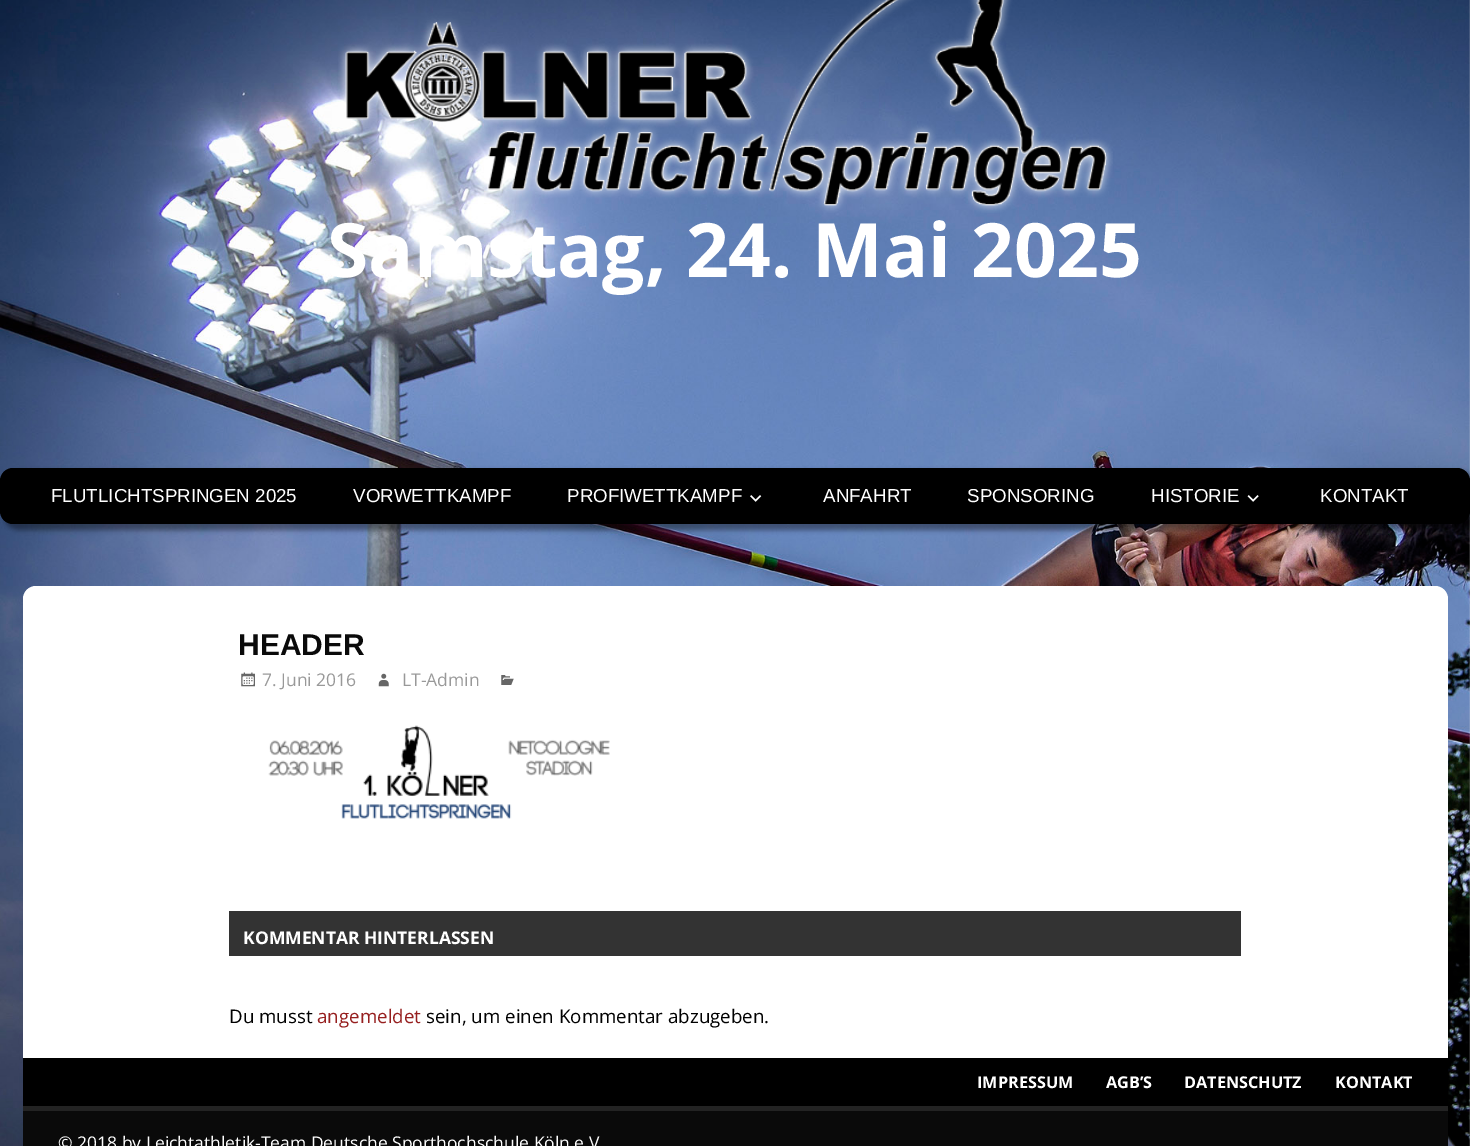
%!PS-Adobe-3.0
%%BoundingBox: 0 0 1470 1146
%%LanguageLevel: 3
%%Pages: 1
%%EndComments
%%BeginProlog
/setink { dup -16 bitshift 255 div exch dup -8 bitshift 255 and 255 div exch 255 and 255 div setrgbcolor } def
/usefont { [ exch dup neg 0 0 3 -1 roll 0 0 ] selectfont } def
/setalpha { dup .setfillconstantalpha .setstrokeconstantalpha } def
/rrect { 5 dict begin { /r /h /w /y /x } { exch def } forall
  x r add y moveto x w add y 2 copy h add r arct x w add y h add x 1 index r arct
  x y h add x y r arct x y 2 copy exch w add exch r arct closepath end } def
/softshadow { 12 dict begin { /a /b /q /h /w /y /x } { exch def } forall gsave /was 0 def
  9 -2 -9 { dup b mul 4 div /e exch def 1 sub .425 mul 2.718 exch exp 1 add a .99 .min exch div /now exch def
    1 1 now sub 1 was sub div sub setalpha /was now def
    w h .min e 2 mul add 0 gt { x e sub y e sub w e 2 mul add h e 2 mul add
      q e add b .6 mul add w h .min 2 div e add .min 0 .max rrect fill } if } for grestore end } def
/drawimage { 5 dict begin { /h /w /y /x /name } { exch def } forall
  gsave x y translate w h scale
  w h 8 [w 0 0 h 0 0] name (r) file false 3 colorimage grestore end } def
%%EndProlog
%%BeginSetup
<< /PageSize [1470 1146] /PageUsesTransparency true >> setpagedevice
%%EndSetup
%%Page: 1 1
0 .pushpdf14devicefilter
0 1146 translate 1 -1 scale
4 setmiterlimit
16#FFFFFF setink
0 0 1470 1146 rectfill
(img1.raw) 0 0 1470 1146 drawimage
(img2.raw) 338 0 775 213 drawimage
/OpenSans-Bold 75 usefont
327 277 moveto (Samstag, 24. Mai 2025) show
16#000000 setink
4 471 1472 59 14 2.5 0.4 softshadow
0 468 1470 56 13 rrect fill
/LiberationSans-Regular 18.75 usefont
16#FFFFFF setink
[
    [(FLUTLICHTSPRINGEN 2025) 51 502]
    [(VORWETTKAMPF) 353 502]
    [(PROFIWETTKAMPF) 567 502]
] { aload pop moveto show } forall
(img3.raw) 750 495 12 7 drawimage
[
    [(ANFAHRT) 823 502]
    [(SPONSORING) 967 502]
    [(HISTORIE) 1151 502]
] { aload pop moveto show } forall
(img4.raw) 1247 495 12 7 drawimage
1320 502 moveto (KONTAKT) show
23 586 1425 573 13 rrect fill
/LiberationSans-Bold 30 usefont
16#0A0A0A setink
238 655 moveto (HEADER) show
(img5.raw) 241 672 14 15 drawimage
/OpenSans-Regular 17.5 usefont
16#999999 setink
262 686 moveto (7. Juni 2016) show
(img6.raw) 378 673 11 14 drawimage
402 686 moveto (LT-Admin) show
(img7.raw) 501 675 13 10 drawimage
(img8.raw) 268 725 342 94 drawimage
16#333333 setink
229 911 1012 45 rectfill
/OpenSans-Bold 17.5 usefont
16#FFFFFF setink
243 944 moveto (KOMMENTAR HINTERLASSEN) show
/OpenSans-Regular 18.75 usefont
16#000000 setink
229 1023 moveto (Du musst) show
16#961F1F setink
317 1023 moveto (angemeldet) show
16#000000 setink
426 1023 moveto (sein, um einen Kommentar abzugeben.) show
23 1058 1425 48 rectfill
/OpenSans-Bold 16.25 usefont
16#FFFFFF setink
[
    [(IMPRESSUM) 977 1088]
    [(AGB’S) 1106 1088]
    [(DATENSCHUTZ) 1184 1088]
    [(KONTAKT) 1335 1088]
] { aload pop moveto show } forall
16#0A0A0A setink
23 1111 1425 35 rectfill
16#232323 setink
23 1106 1425 5 rectfill
/OpenSans-Regular 17.5 usefont
16#FFFFFF setink
58 1149 moveto (© 2018 by Leichtathletik-Team Deutsche Sporthochschule Köln e.V) show
.poppdf14devicefilter showpage
%%EOF
